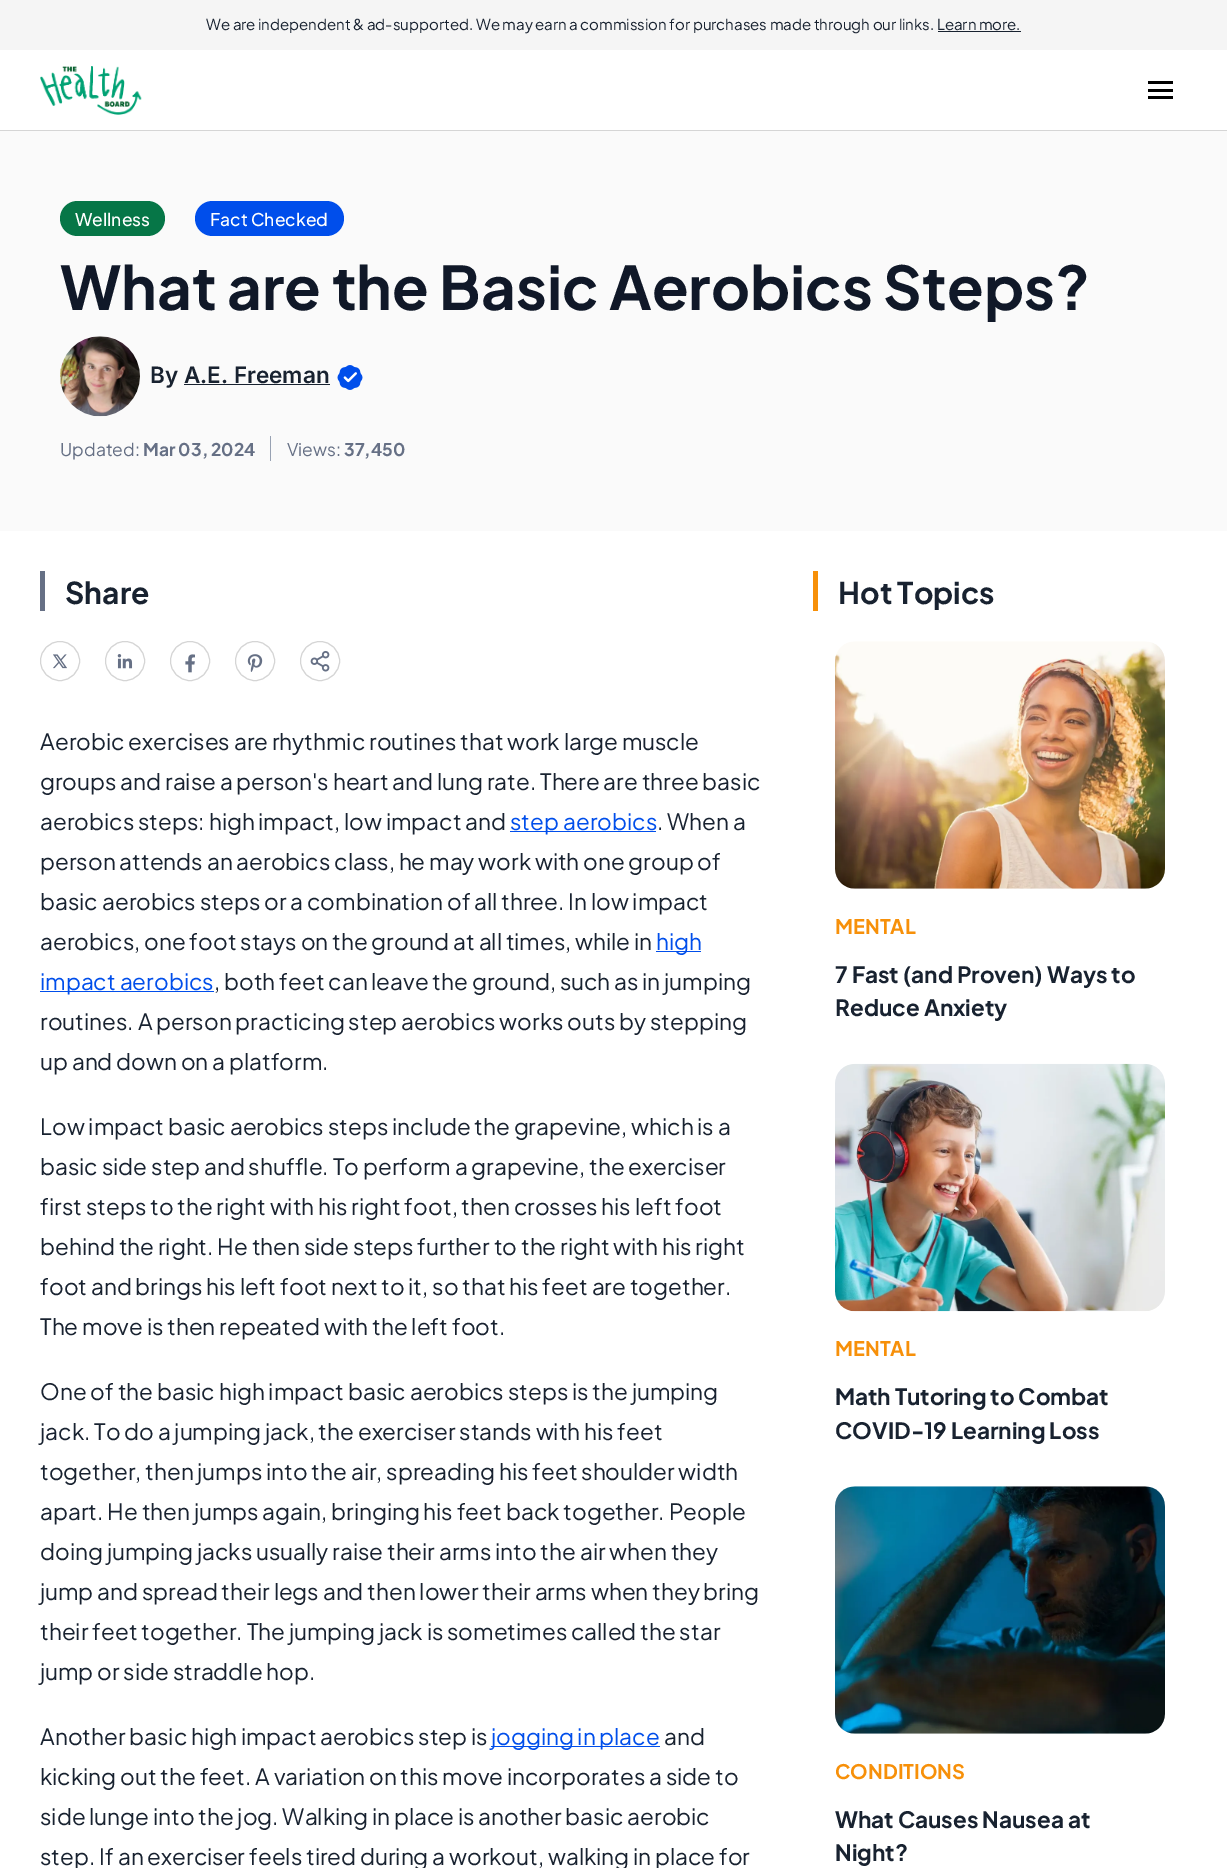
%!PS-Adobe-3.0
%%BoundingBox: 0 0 1227 1868
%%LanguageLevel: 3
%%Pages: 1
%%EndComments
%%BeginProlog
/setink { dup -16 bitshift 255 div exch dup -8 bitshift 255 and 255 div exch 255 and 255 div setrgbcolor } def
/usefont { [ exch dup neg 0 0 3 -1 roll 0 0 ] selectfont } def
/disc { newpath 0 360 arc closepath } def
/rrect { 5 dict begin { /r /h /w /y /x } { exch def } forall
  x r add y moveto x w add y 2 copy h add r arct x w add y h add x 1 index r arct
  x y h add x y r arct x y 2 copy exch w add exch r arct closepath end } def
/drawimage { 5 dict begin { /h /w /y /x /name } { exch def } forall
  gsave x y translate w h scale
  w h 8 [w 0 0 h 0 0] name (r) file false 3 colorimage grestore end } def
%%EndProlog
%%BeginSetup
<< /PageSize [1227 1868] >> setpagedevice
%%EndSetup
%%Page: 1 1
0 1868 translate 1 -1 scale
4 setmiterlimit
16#FFFFFF setink
0 0 1227 1868 rectfill
16#F5F5F5 setink
0 0 1227 50 rectfill
/PlusJakartaSans-Regular 15 usefont
16#182230 setink
206 30 moveto (We are independent & ad-supported. We may earn a commission for purchases made through our links. Learn more.) show
938 31 83 1 rectfill
16#D5D5D5 setink
0 130 1227 1 rectfill
(img1.raw) 40 66 102 49 drawimage
[
    [1148 89 25 3 16#000000]
    [1148 81 25 3 16#000000]
    [1148 96 25 3 16#000000]
    [0 131 1227 400 16#FAFAFA]
] { aload pop setink rectfill } forall
16#067647 setink
60 201 105 35 17.5 rrect fill
/PlusJakartaSans-Medium 17.5 usefont
16#FFFFFF setink
75 226 moveto (Wellness) show
16#004EEB setink
195 201 149 35 17.5 rrect fill
16#FFFFFF setink
210 226 moveto (Fact Checked) show
/PlusJakartaSans-Bold 60 usefont
16#101828 setink
60 310 moveto (What are the Basic Aerobics Steps?) show
(img2.raw) 60 336 80 81 drawimage
/Inter-SemiBold 22.5 usefont
16#182230 setink
150 383 moveto (By A.E. Freeman) show
(img3.raw) 337 365 26 25 drawimage
184 384 146 1 rectfill
/PlusJakartaSans-Regular 17.5 usefont
16#667085 setink
60 456 moveto (Updated:) show
/PlusJakartaSans-Bold 17.5 usefont
143 456 moveto (Mar 03, 2024) show
16#98A2B3 setink
270 436 1 25 rectfill
/PlusJakartaSans-Regular 17.5 usefont
16#667085 setink
287 456 moveto (Views:) show
/PlusJakartaSans-Bold 17.5 usefont
344 456 moveto (37,450) show
40 571 5 40 rectfill
/PlusJakartaSans-Bold 30 usefont
16#182230 setink
65 604 moveto (Share) show
16#D5D5D5 setink
60 661 19.5 disc stroke
(img4.raw) 53 654 14 15 drawimage
125 661 19.5 disc stroke
(img5.raw) 117 654 16 15 drawimage
190 661 19.5 disc stroke
(img6.raw) 185 654 10 19 drawimage
255 661 19.5 disc stroke
(img7.raw) 247 654 16 18 drawimage
320 661 19.5 disc stroke
(img8.raw) 310 650 20 22 drawimage
/PlusJakartaSans-Regular 22.5 usefont
16#182230 setink
[
    [(Aerobic exercises are rhythmic routines that work large muscle) 40 750]
    [(groups and raise a person's heart and lung rate. There are three basic) 40 790]
    [(aerobics steps: high impact, low impact and) 40 830]
] { aload pop moveto show } forall
16#004EEB setink
510 831 146 1 rectfill
510 830 moveto (step aerobics) show
16#182230 setink
[
    [(. When a) 657 830]
    [(person attends an aerobics class, he may work with one group of) 40 870]
    [(basic aerobics steps or a combination of all three. In low impact) 40 910]
    [(aerobics, one foot stays on the ground at all times, while in) 40 950]
] { aload pop moveto show } forall
16#004EEB setink
656 951 45 1 rectfill
656 950 moveto (high) show
40 991 174 1 rectfill
40 990 moveto (impact aerobics) show
16#182230 setink
[
    [(, both feet can leave the ground, such as in jumping) 214 990]
    [(routines. A person practicing step aerobics works outs by stepping) 40 1030]
    [(up and down on a platform.) 40 1070]
    [(Low impact basic aerobics steps include the grapevine, which is a) 40 1135]
    [(basic side step and shuffle. To perform a grapevine, the exerciser) 40 1175]
    [(first steps to the right with his right foot, then crosses his left foot) 40 1215]
    [(behind the right. He then side steps further to the right with his right) 40 1255]
    [(foot and brings his left foot next to it, so that his feet are together.) 40 1295]
    [(The move is then repeated with the left foot.) 40 1335]
    [(One of the basic high impact basic aerobics steps is the jumping) 40 1400]
    [(jack. To do a jumping jack, the exerciser stands with his feet) 40 1440]
    [(together, then jumps into the air, spreading his feet shoulder width) 40 1480]
    [(apart. He then jumps again, bringing his feet back together. People) 40 1520]
    [(doing jumping jacks usually raise their arms into the air when they) 40 1560]
    [(jump and spread their legs and then lower their arms when they bring) 40 1600]
    [(their feet together. The jumping jack is sometimes called the star) 40 1640]
    [(jump or side straddle hop.) 40 1680]
    [(Another basic high impact aerobics step is) 40 1745]
] { aload pop moveto show } forall
16#004EEB setink
491 1746 169 1 rectfill
491 1745 moveto (jogging in place) show
16#182230 setink
[
    [(and) 664 1745]
    [(kicking out the feet. A variation on this move incorporates a side to) 40 1785]
    [(side lunge into the jog. Walking in place is another basic aerobic) 40 1825]
    [(step. If an exerciser feels tired during a workout, walking in place for) 40 1865]
] { aload pop moveto show } forall
16#F79009 setink
813 571 5 40 rectfill
/PlusJakartaSans-Bold 30 usefont
16#182230 setink
838 604 moveto (Hot Topics) show
(img9.raw) 835 641 330 248 drawimage
/PlusJakartaSans-Bold 20 usefont
16#F79009 setink
835 934 moveto (MENTAL) show
/PlusJakartaSans-Bold 22.5 usefont
16#182230 setink
835 983 moveto (7 Fast \(and Proven\) Ways to) show
835 1016 moveto (Reduce Anxiety) show
(img10.raw) 835 1063 330 249 drawimage
/PlusJakartaSans-Bold 20 usefont
16#F79009 setink
835 1356 moveto (MENTAL) show
/PlusJakartaSans-Bold 22.5 usefont
16#182230 setink
835 1405 moveto (Math Tutoring to Combat) show
835 1439 moveto (COVID-19 Learning Loss) show
(img11.raw) 835 1486 330 248 drawimage
/PlusJakartaSans-Bold 20 usefont
16#F79009 setink
835 1779 moveto (CONDITIONS) show
/PlusJakartaSans-Bold 22.5 usefont
16#182230 setink
835 1828 moveto (What Causes Nausea at) show
835 1861 moveto (Night?) show
showpage
%%EOF
